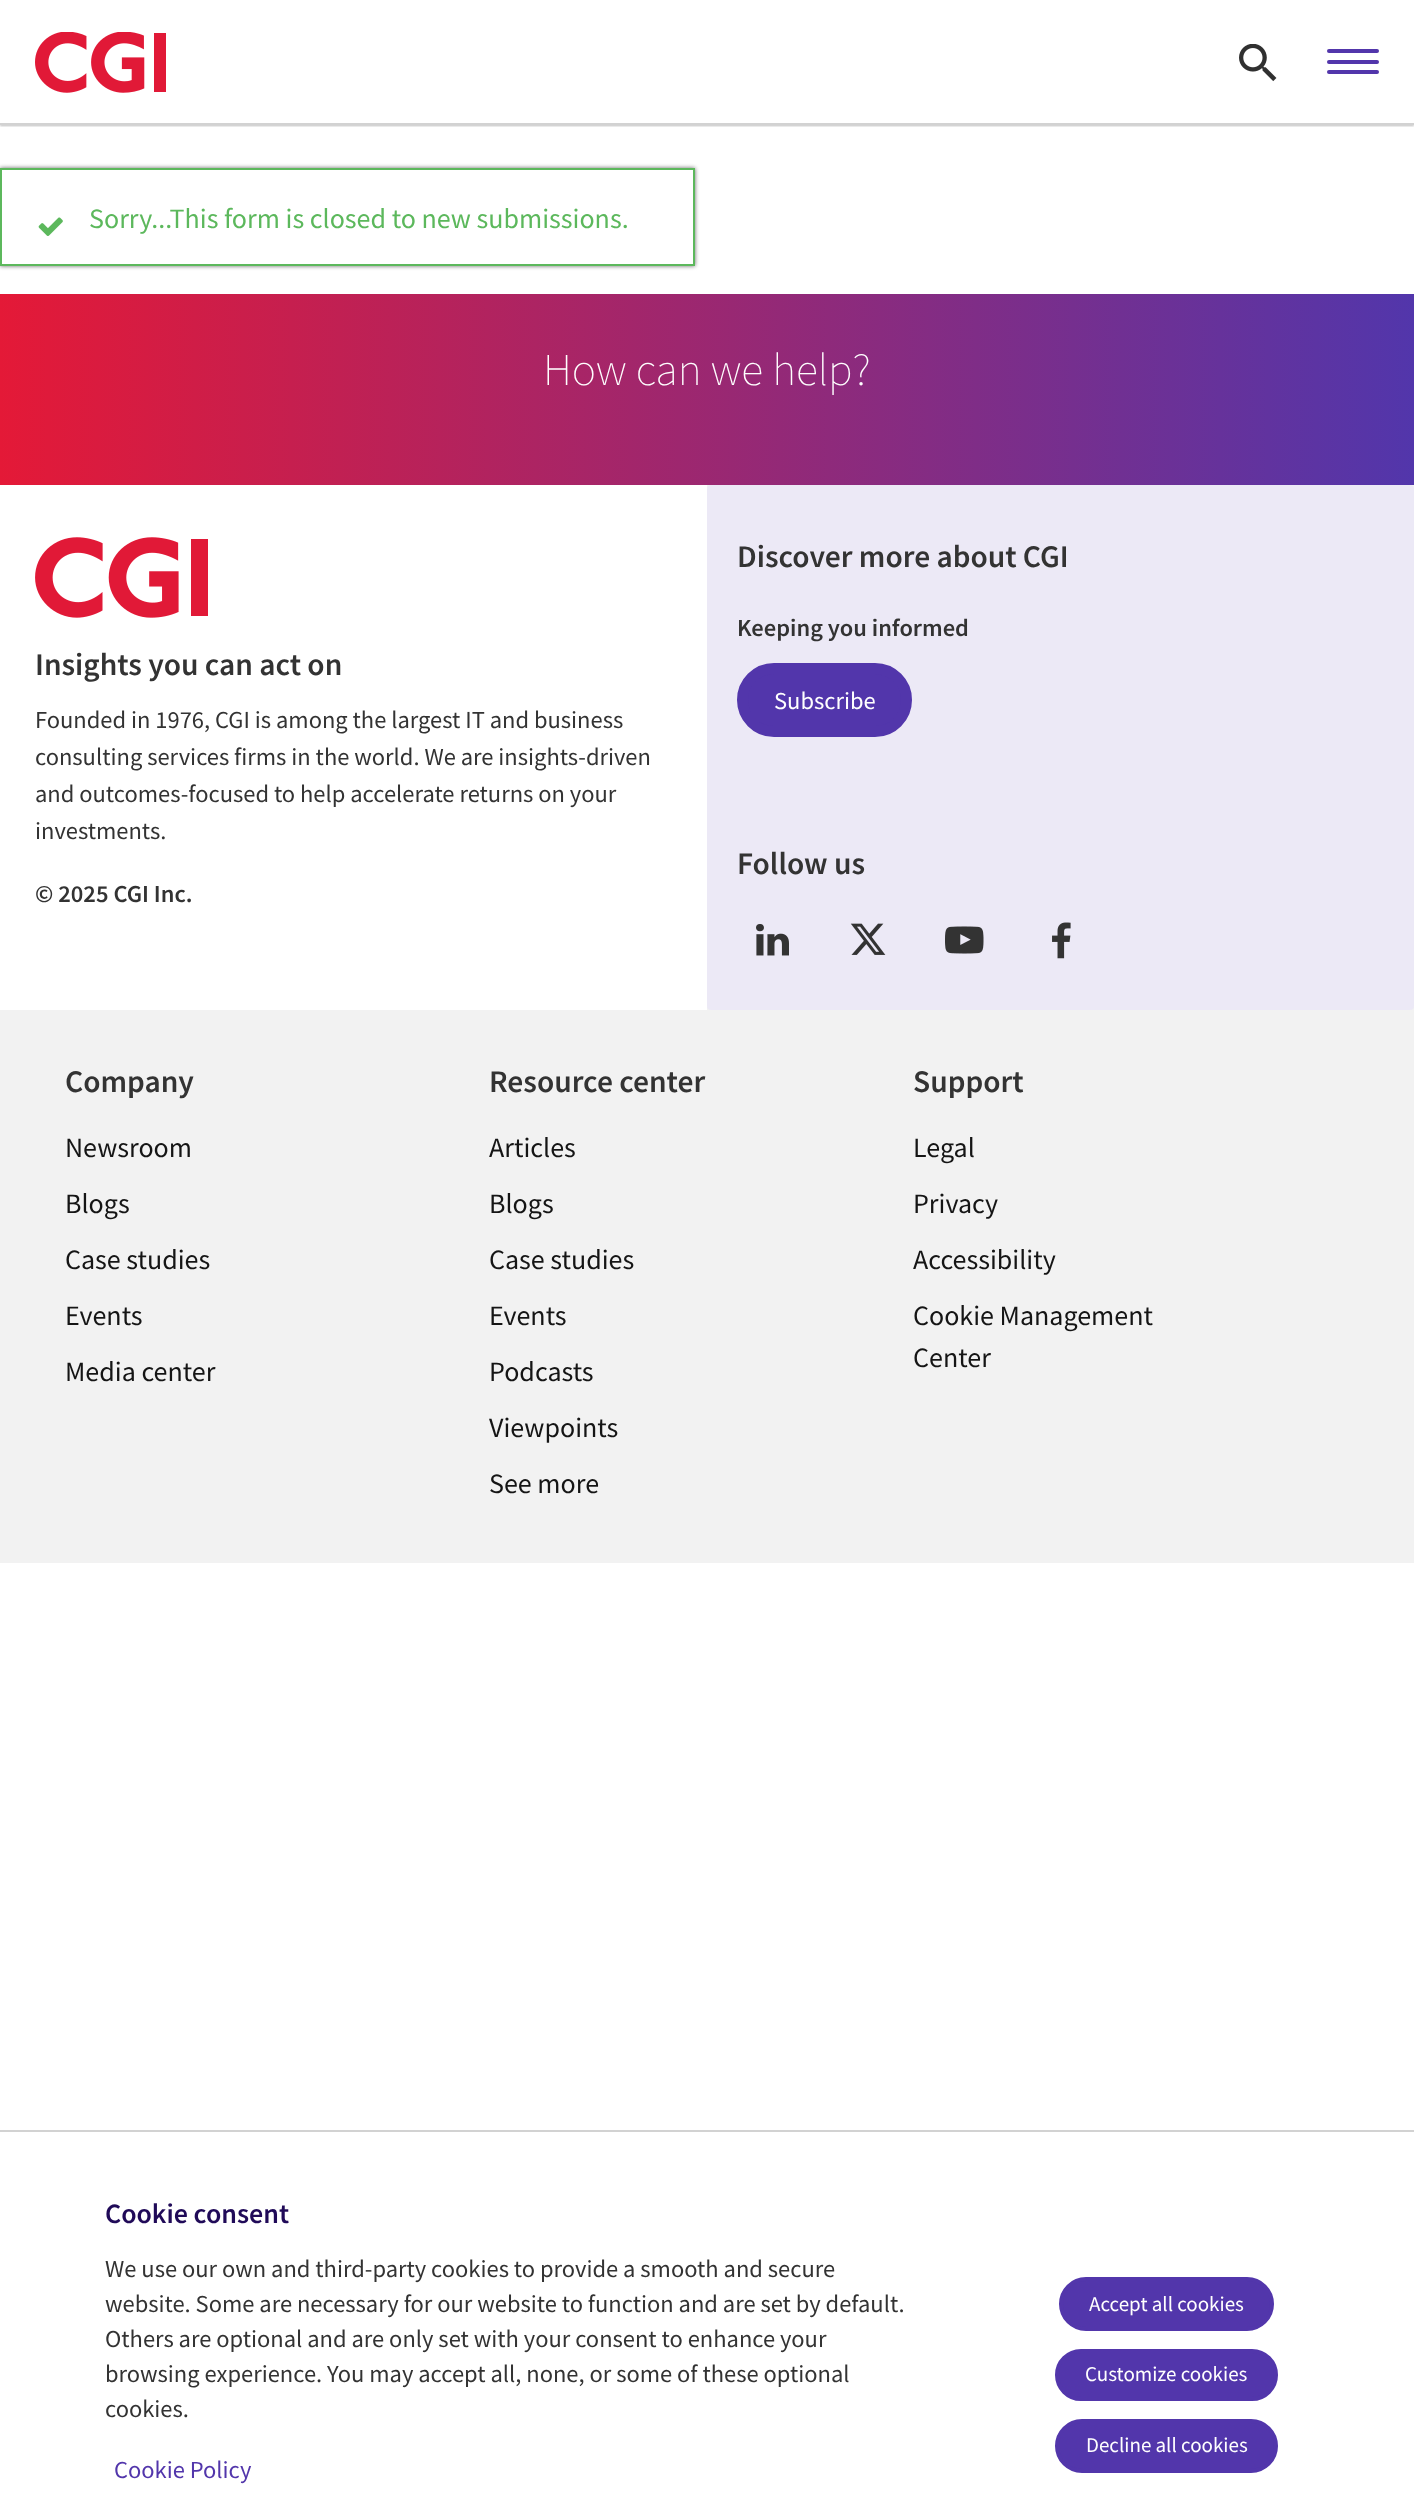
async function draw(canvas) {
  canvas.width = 1414;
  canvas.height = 2503;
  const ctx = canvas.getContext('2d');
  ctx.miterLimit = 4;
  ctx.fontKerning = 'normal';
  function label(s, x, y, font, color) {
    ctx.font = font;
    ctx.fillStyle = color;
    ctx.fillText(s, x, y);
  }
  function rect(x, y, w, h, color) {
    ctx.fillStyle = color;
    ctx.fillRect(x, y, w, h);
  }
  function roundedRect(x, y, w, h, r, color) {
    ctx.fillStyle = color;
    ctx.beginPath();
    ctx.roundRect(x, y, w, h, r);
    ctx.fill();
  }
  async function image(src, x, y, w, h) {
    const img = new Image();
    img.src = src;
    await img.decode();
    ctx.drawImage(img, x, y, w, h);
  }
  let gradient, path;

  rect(0, 0, 1414, 2503, '#fff');
  ctx.save();
  ctx.beginPath();
  ctx.rect(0, 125, 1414, 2);
  ctx.clip();
  ctx.fillStyle = '#00000040';
  ctx.filter = 'blur(1px)';
  ctx.beginPath();
  ctx.rect(0, 2, 1414, 124);
  ctx.fill();
  ctx.filter = 'none';
  ctx.restore();
  rect(0, 123, 1414, 2, '#d2d2d2');
  await image('assets/img1.png', 35, 32, 131, 61);
  await image('assets/img2.png', 1239, 44, 38, 38);
  roundedRect(1327, 70, 52, 4, 2, '#5236ab');
  roundedRect(1327, 49, 52, 4, 2, '#5236ab');
  roundedRect(1327, 60, 52, 4, 2, '#5236ab');
  ctx.save();
  path = new Path2D('M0 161H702V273H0ZM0 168H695V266H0Z');
  ctx.clip(path, 'evenodd');
  ctx.fillStyle = '#666';
  ctx.filter = 'blur(2px)';
  ctx.beginPath();
  ctx.rect(0, 168, 695, 98);
  ctx.fill();
  ctx.filter = 'none';
  ctx.restore();
  ctx.strokeStyle = '#5cb85c';
  ctx.lineWidth = 2;
  ctx.strokeRect(1, 169, 693, 96);
  await image('assets/img3.png', 38, 217, 25, 19);
  label('Sorry...This form is closed to new submissions.', 89, 228, '28px Source Sans Pro', '#5cb85c');
  gradient = ctx.createLinearGradient(1414, 389, 0, 389);
  gradient.addColorStop(0, '#5236ab');
  gradient.addColorStop(1, '#e41937');
  ctx.fillStyle = gradient;
  ctx.fillRect(0, 294, 1414, 191);
  label('How can we help?', 543, 385, '200 45.5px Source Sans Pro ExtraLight', '#fff');
  rect(0, 485, 1414, 1078, '#f2f2f2');
  rect(0, 485, 707, 525, '#fff');
  await image('assets/img4.png', 35, 537, 173, 81);
  label('Insights you can act on', 35, 675, '600 31.5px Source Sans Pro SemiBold', '#333');
  label('Founded in 1976, CGI is among the largest IT and business', 35, 728, '24.5px Source Sans Pro', '#333');
  label('consulting services firms in the world. We are insights-driven', 35, 765, '24.5px Source Sans Pro', '#333');
  label('and outcomes-focused to help accelerate returns on your', 35, 802, '24.5px Source Sans Pro', '#333');
  label('investments.', 35, 839, '24.5px Source Sans Pro', '#333');
  label('© 2025 CGI Inc.', 35, 902, '600 24.5px Source Sans Pro SemiBold', '#333');
  roundedRect(707, 485, 707, 525, 4, '#ece9f6');
  label('Discover more about CGI', 737, 567, '600 31.5px Source Sans Pro SemiBold', '#333');
  label('Keeping you informed', 737, 636, '600 24.5px Source Sans Pro SemiBold', '#333');
  ctx.fillStyle = '#5236ab';
  ctx.beginPath();
  ctx.roundRect(742.5, 668.5, 164, 63, 31.5);
  ctx.fill();
  ctx.strokeStyle = '#5236ab';
  ctx.lineWidth = 11;
  ctx.stroke();
  label('Subscribe', 774, 709, '24.5px Source Sans Pro', '#fff');
  label('Follow us', 737, 874, '600 31.5px Source Sans Pro SemiBold', '#333');
  await image('assets/img5.png', 756, 924, 33, 32);
  await image('assets/img6.png', 850, 923, 36, 32);
  await image('assets/img7.png', 945, 926, 39, 28);
  await image('assets/img8.png', 1052, 922, 19, 37);
  label('Company', 65, 1092, '600 31.5px Source Sans Pro SemiBold', '#333');
  label('Newsroom', 65, 1157, '28px Source Sans Pro', '#151515');
  label('Blogs', 65, 1213, '28px Source Sans Pro', '#151515');
  label('Case studies', 65, 1269, '28px Source Sans Pro', '#151515');
  label('Events', 65, 1325, '28px Source Sans Pro', '#151515');
  label('Media center', 65, 1381, '28px Source Sans Pro', '#151515');
  label('Resource center', 489, 1092, '600 31.5px Source Sans Pro SemiBold', '#333');
  label('Articles', 489, 1157, '28px Source Sans Pro', '#151515');
  label('Blogs', 489, 1213, '28px Source Sans Pro', '#151515');
  label('Case studies', 489, 1269, '28px Source Sans Pro', '#151515');
  label('Events', 489, 1325, '28px Source Sans Pro', '#151515');
  label('Podcasts', 489, 1381, '28px Source Sans Pro', '#151515');
  label('Viewpoints', 489, 1437, '28px Source Sans Pro', '#151515');
  label('See more', 489, 1493, '28px Source Sans Pro', '#151515');
  label('Support', 913, 1092, '600 31.5px Source Sans Pro SemiBold', '#333');
  label('Legal', 913, 1157, '28px Source Sans Pro', '#151515');
  label('Privacy', 913, 1213, '28px Source Sans Pro', '#151515');
  label('Accessibility', 913, 1269, '28px Source Sans Pro', '#151515');
  label('Cookie Management', 913, 1325, '28px Source Sans Pro', '#151515');
  label('Center', 913, 1367, '28px Source Sans Pro', '#151515');
  rect(0, 2130, 1414, 2, '#d2d2d2');
  label('Cookie consent', 105, 2223, '600 28px Source Sans Pro SemiBold', '#200a58');
  label('We use our own and third-party cookies to provide a smooth and secure', 105, 2277, '24.5px Source Sans Pro', '#333');
  label('website. Some are necessary for our website to function and are set by default.', 105, 2312, '24.5px Source Sans Pro', '#333');
  label('Others are optional and are only set with your consent to enhance your', 105, 2347, '24.5px Source Sans Pro', '#333');
  label('browsing experience. You may accept all, none, or some of these optional', 105, 2382, '24.5px Source Sans Pro', '#333');
  label('cookies.', 105, 2417, '24.5px Source Sans Pro', '#333');
  ctx.fillStyle = '#5236ab';
  ctx.beginPath();
  ctx.roundRect(1061, 2279, 211, 50, 25);
  ctx.fill();
  ctx.lineWidth = 4;
  ctx.stroke();
  label('Accept all cookies', 1089, 2311, '21px Source Sans Pro', '#fff');
  ctx.fillStyle = '#5236ab';
  ctx.beginPath();
  ctx.roundRect(1057, 2351, 219, 48, 24);
  ctx.fill();
  ctx.stroke();
  label('Customize cookies', 1085, 2381, '21px Source Sans Pro', '#fff');
  ctx.fillStyle = '#5236ab';
  ctx.beginPath();
  ctx.roundRect(1057, 2421, 219, 50, 25);
  ctx.fill();
  ctx.stroke();
  label('Decline all cookies', 1086, 2452, '21px Source Sans Pro', '#fff');
  label('Cookie Policy', 114, 2478, '24.5px Source Sans Pro', '#5236ab');
}

draw(document.querySelector('canvas'));
